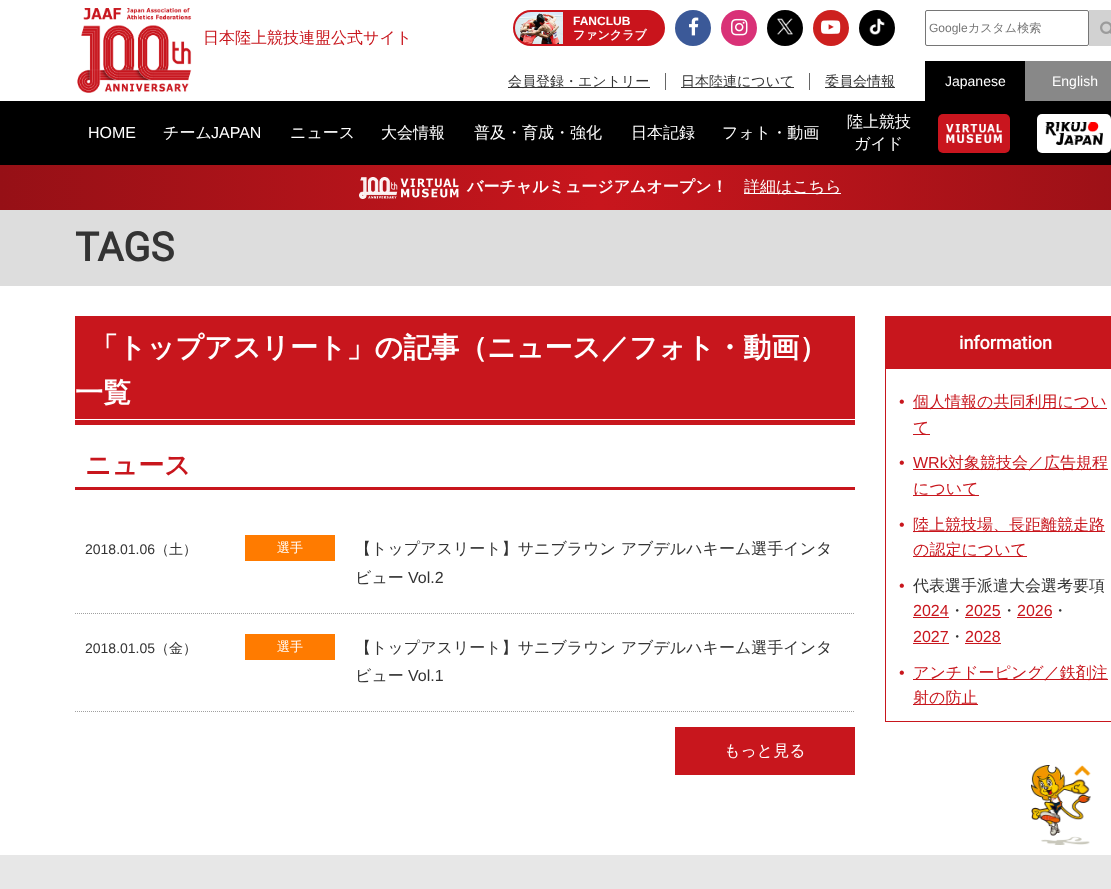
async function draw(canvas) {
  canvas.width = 1111;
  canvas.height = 889;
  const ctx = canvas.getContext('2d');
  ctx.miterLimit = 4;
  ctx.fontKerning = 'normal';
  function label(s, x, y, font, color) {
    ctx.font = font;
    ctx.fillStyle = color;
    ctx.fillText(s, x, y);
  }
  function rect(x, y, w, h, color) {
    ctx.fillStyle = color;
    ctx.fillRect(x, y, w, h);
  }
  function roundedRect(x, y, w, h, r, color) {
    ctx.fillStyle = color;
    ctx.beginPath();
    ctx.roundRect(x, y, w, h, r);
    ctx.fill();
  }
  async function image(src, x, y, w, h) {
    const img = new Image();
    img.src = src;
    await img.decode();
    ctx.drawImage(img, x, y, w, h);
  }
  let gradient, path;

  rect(0, 0, 1111, 889, '#fff');
  await image('assets/img1.png', 77, 8, 115, 85);
  label('日本陸上競技連盟公式サイト', 203, 43, '500 16px WenQuanYi Zen Hei', '#c8161d');
  ctx.fillStyle = '#c9141c';
  ctx.beginPath();
  ctx.roundRect(514, 11, 150, 34, 17);
  ctx.fill();
  ctx.strokeStyle = '#c9141c';
  ctx.lineWidth = 2;
  ctx.stroke();
  await image('assets/img2.png', 515, 12, 48, 32);
  label('FANCLUB', 573, 25, 'bold 12px Liberation Sans', '#fff');
  label('ファンクラブ', 573, 39, 'bold 12px WenQuanYi Zen Hei', '#fff');
  ctx.beginPath();
  ctx.roundRect(925.5, 10.5, 163, 35, 1.5);
  ctx.strokeStyle = '#767676';
  ctx.lineWidth = 1;
  ctx.stroke();
  label('Google', 929, 32, '12px Liberation Sans', '#757575');
  label('カスタム検索', 968, 32, '500 12px WenQuanYi Zen Hei', '#757575');
  rect(1089, 10, 22, 36, '#d2d2d2');
  await image('assets/img3.png', 1100, 21, 11, 13);
  rect(925, 61, 100, 40, '#000');
  label('Japanese', 945, 86, '14px Liberation Sans', '#fff');
  rect(1025, 61, 86, 40, '#888');
  label('English', 1052, 86, '14px Liberation Sans', '#fff');
  ctx.fillStyle = '#3b5998';
  ctx.beginPath();
  ctx.arc(693, 28, 18, 0, 2 * Math.PI);
  ctx.fill();
  await image('assets/img4.png', 689, 17, 10, 19);
  ctx.fillStyle = '#d93177';
  ctx.beginPath();
  ctx.arc(739, 28, 18, 0, 2 * Math.PI);
  ctx.fill();
  await image('assets/img5.png', 731, 18, 17, 18);
  ctx.fillStyle = '#000';
  ctx.beginPath();
  ctx.arc(785, 28, 18, 0, 2 * Math.PI);
  ctx.fill();
  await image('assets/img6.png', 777, 18, 16, 17);
  ctx.fillStyle = '#cd201f';
  ctx.beginPath();
  ctx.arc(831, 28, 18, 0, 2 * Math.PI);
  ctx.fill();
  await image('assets/img7.png', 821, 20, 20, 14);
  ctx.fillStyle = '#000';
  ctx.beginPath();
  ctx.arc(877, 28, 18, 0, 2 * Math.PI);
  ctx.fill();
  await image('assets/img8.png', 869, 18, 16, 17);
  rect(508, 87, 142, 1, '#333');
  label('会員登録・エントリー', 508, 86, '500 14px WenQuanYi Zen Hei', '#333');
  rect(665, 73, 1, 17, '#666');
  rect(681, 87, 113, 1, '#333');
  label('日本陸連について', 681, 86, '500 14px WenQuanYi Zen Hei', '#333');
  rect(809, 73, 1, 17, '#666');
  rect(825, 87, 70, 1, '#333');
  label('委員会情報', 825, 86, '500 14px WenQuanYi Zen Hei', '#333');
  rect(0, 101, 1111, 64, '#000');
  label('HOME', 88, 138, '16px Liberation Sans', '#fff');
  label('チーム', 163, 138, '500 16px WenQuanYi Zen Hei', '#fff');
  label('JAPAN', 211, 138, '16px Liberation Sans', '#fff');
  label('ニュース', 290, 138, '500 16px WenQuanYi Zen Hei', '#fff');
  label('大会情報', 381, 138, '500 16px WenQuanYi Zen Hei', '#fff');
  label('普及・育成・強化', 474, 138, '500 16px WenQuanYi Zen Hei', '#fff');
  label('日本記録', 631, 138, '500 16px WenQuanYi Zen Hei', '#fff');
  label('フォト・動画', 722, 138, '500 16px WenQuanYi Zen Hei', '#fff');
  label('陸上競技', 847, 127, '500 16px WenQuanYi Zen Hei', '#fff');
  label('ガイド', 854, 149, '500 16px WenQuanYi Zen Hei', '#fff');
  roundedRect(938, 114, 72, 39, 5, '#c9151e');
  await image('assets/img9.png', 946, 124, 56, 19);
  roundedRect(1037, 114, 74, 39, 5, '#fff');
  await image('assets/img10.png', 1045, 122, 58, 23);
  gradient = ctx.createLinearGradient(0, 188, 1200, 187);
  gradient.addColorStop(0, '#961016');
  gradient.addColorStop(0.5, '#c8161d');
  gradient.addColorStop(1, '#961016');
  ctx.fillStyle = gradient;
  ctx.fillRect(0, 165, 1111, 45);
  await image('assets/img11.png', 359, 177, 100, 22);
  label('バーチャルミュージアムオープン！', 467, 192, 'bold 16px WenQuanYi Zen Hei', '#fff');
  rect(744, 193, 97, 1, '#fff');
  label('詳細はこちら', 744, 192, '500 16px WenQuanYi Zen Hei', '#fff');
  rect(0, 210, 1111, 76, '#ddd');
  label('TAGS', 75, 261, 'bold 40px Roboto', '#333');
  rect(75, 316, 780, 109, '#c8161d');
  label('「トップアスリート」の記事（ニュース／フォト・動画）', 90, 357, 'bold 28px WenQuanYi Zen Hei', '#fff');
  label('一覧', 75, 402, 'bold 28px WenQuanYi Zen Hei', '#fff');
  rect(75, 419, 780, 1, '#fff');
  rect(75, 487, 780, 3, '#c8161d');
  label('ニュース', 85, 474, 'bold 26px WenQuanYi Zen Hei', '#c8161d');
  path = new Path2D('M75 613.5H855');
  ctx.strokeStyle = '#a0a0a0';
  ctx.setLineDash([1, 1]);
  ctx.stroke(path);
  label('2018.01.06', 85, 554, '14px Liberation Sans', '#333');
  label('（土）', 155, 554, '500 14px WenQuanYi Zen Hei', '#333');
  label('【トップアスリート】サニブラウン アブデルハキーム選手インタ', 355, 554, '500 16px WenQuanYi Zen Hei', '#333');
  label('ビュー', 355, 583, '500 16px WenQuanYi Zen Hei', '#333');
  label('Vol.2', 408, 583, '16px Liberation Sans', '#333');
  rect(245, 535, 90, 26, '#ff7b00');
  label('選手', 277, 552, '500 13px WenQuanYi Zen Hei', '#fff');
  path = new Path2D('M75 711.5H855');
  ctx.stroke(path);
  label('2018.01.05', 85, 653, '14px Liberation Sans', '#333');
  label('（金）', 155, 653, '500 14px WenQuanYi Zen Hei', '#333');
  label('【トップアスリート】サニブラウン アブデルハキーム選手インタ', 355, 653, '500 16px WenQuanYi Zen Hei', '#333');
  label('ビュー', 355, 681, '500 16px WenQuanYi Zen Hei', '#333');
  label('Vol.1', 408, 681, '16px Liberation Sans', '#333');
  rect(245, 634, 90, 26, '#ff7b00');
  label('選手', 277, 651, '500 13px WenQuanYi Zen Hei', '#fff');
  rect(675, 727, 180, 48, '#c8161d');
  label('もっと見る', 724, 756, '500 16px WenQuanYi Zen Hei', '#fff');
  ctx.strokeStyle = '#c8161d';
  ctx.setLineDash([]);
  ctx.strokeRect(885.5, 316.5, 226, 405);
  rect(886, 317, 225, 52, '#c8161d');
  label('information', 959, 349, 'bold 18px Roboto', '#fff');
  label('•', 899, 407, '16px Liberation Sans', '#c8161d');
  rect(913, 408, 194, 1, '#c8161d');
  label('個人情報の共同利用につい', 913, 407, '500 16px WenQuanYi Zen Hei', '#c8161d');
  rect(913, 434, 17, 1, '#c8161d');
  label('て', 913, 433, '500 16px WenQuanYi Zen Hei', '#c8161d');
  label('•', 899, 468, '16px Liberation Sans', '#c8161d');
  label('WRk', 913, 468, '16px Liberation Sans', '#c8161d');
  rect(913, 469, 195, 1, '#c8161d');
  label('対象競技会／広告規程', 948, 468, '500 16px WenQuanYi Zen Hei', '#c8161d');
  rect(913, 495, 66, 1, '#c8161d');
  label('について', 913, 494, '500 16px WenQuanYi Zen Hei', '#c8161d');
  label('•', 899, 530, '16px Liberation Sans', '#c8161d');
  rect(913, 531, 192, 1, '#c8161d');
  label('陸上競技場、長距離競走路', 913, 530, '500 16px WenQuanYi Zen Hei', '#c8161d');
  rect(913, 556, 114, 1, '#c8161d');
  label('の認定について', 913, 555, '500 16px WenQuanYi Zen Hei', '#c8161d');
  label('•', 899, 591, '16px Liberation Sans', '#c8161d');
  label('代表選手派遣大会選考要項', 913, 591, '500 16px WenQuanYi Zen Hei', '#333');
  label('2024', 913, 616, '16px Liberation Sans', '#c8161d');
  rect(913, 617, 36, 1, '#c8161d');
  label('・', 949, 616, '500 16px WenQuanYi Zen Hei', '#333');
  label('2025', 965, 616, '16px Liberation Sans', '#c8161d');
  rect(965, 617, 36, 1, '#c8161d');
  label('・', 1001, 616, '500 16px WenQuanYi Zen Hei', '#333');
  label('2026', 1017, 616, '16px Liberation Sans', '#c8161d');
  rect(1017, 617, 35, 1, '#c8161d');
  label('・', 1052, 616, '500 16px WenQuanYi Zen Hei', '#333');
  label('2027', 913, 642, '16px Liberation Sans', '#c8161d');
  rect(913, 643, 36, 1, '#c8161d');
  label('・', 949, 642, '500 16px WenQuanYi Zen Hei', '#333');
  label('2028', 965, 642, '16px Liberation Sans', '#c8161d');
  rect(965, 643, 36, 1, '#c8161d');
  label('•', 899, 678, '16px Liberation Sans', '#c8161d');
  rect(913, 679, 195, 1, '#c8161d');
  label('アンチドーピング／鉄剤注', 913, 678, '500 16px WenQuanYi Zen Hei', '#c8161d');
  rect(913, 704, 65, 1, '#c8161d');
  label('射の防止', 913, 703, '500 16px WenQuanYi Zen Hei', '#c8161d');
  await image('assets/img12.png', 1031, 765, 60, 80);
  rect(0, 855, 1111, 34, '#e7e7e7');
}

draw(document.querySelector('canvas'));
